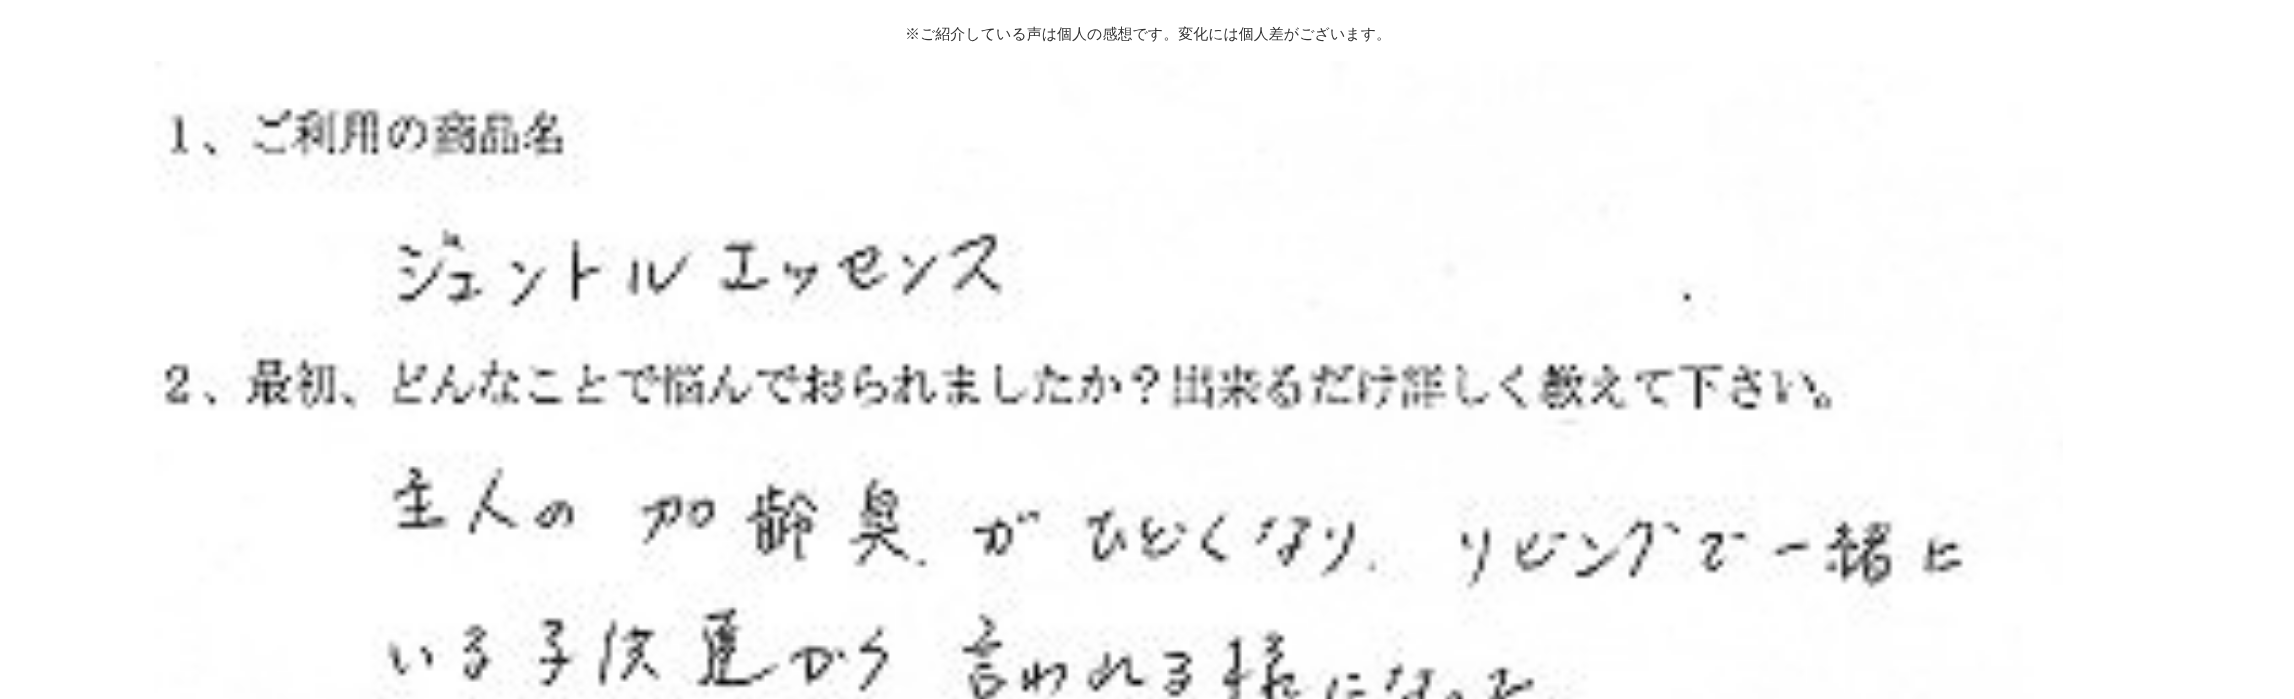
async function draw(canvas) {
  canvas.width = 2294;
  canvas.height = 699;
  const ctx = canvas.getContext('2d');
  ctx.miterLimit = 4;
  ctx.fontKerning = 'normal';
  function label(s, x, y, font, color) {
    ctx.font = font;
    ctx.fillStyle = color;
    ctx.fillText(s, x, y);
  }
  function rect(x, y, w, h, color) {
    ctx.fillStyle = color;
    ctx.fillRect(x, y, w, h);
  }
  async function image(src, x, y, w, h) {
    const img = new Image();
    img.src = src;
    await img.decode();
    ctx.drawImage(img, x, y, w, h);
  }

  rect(0, 0, 2294, 699, '#fff');
  label('※ご紹介している声は個人の感想です。変化には個人差がございます。', 905, 39, '500 15px WenQuanYi Zen Hei', '#333');
  await image('assets/img1.png', 154, 61, 1909, 638);
}

draw(document.querySelector('canvas'));
